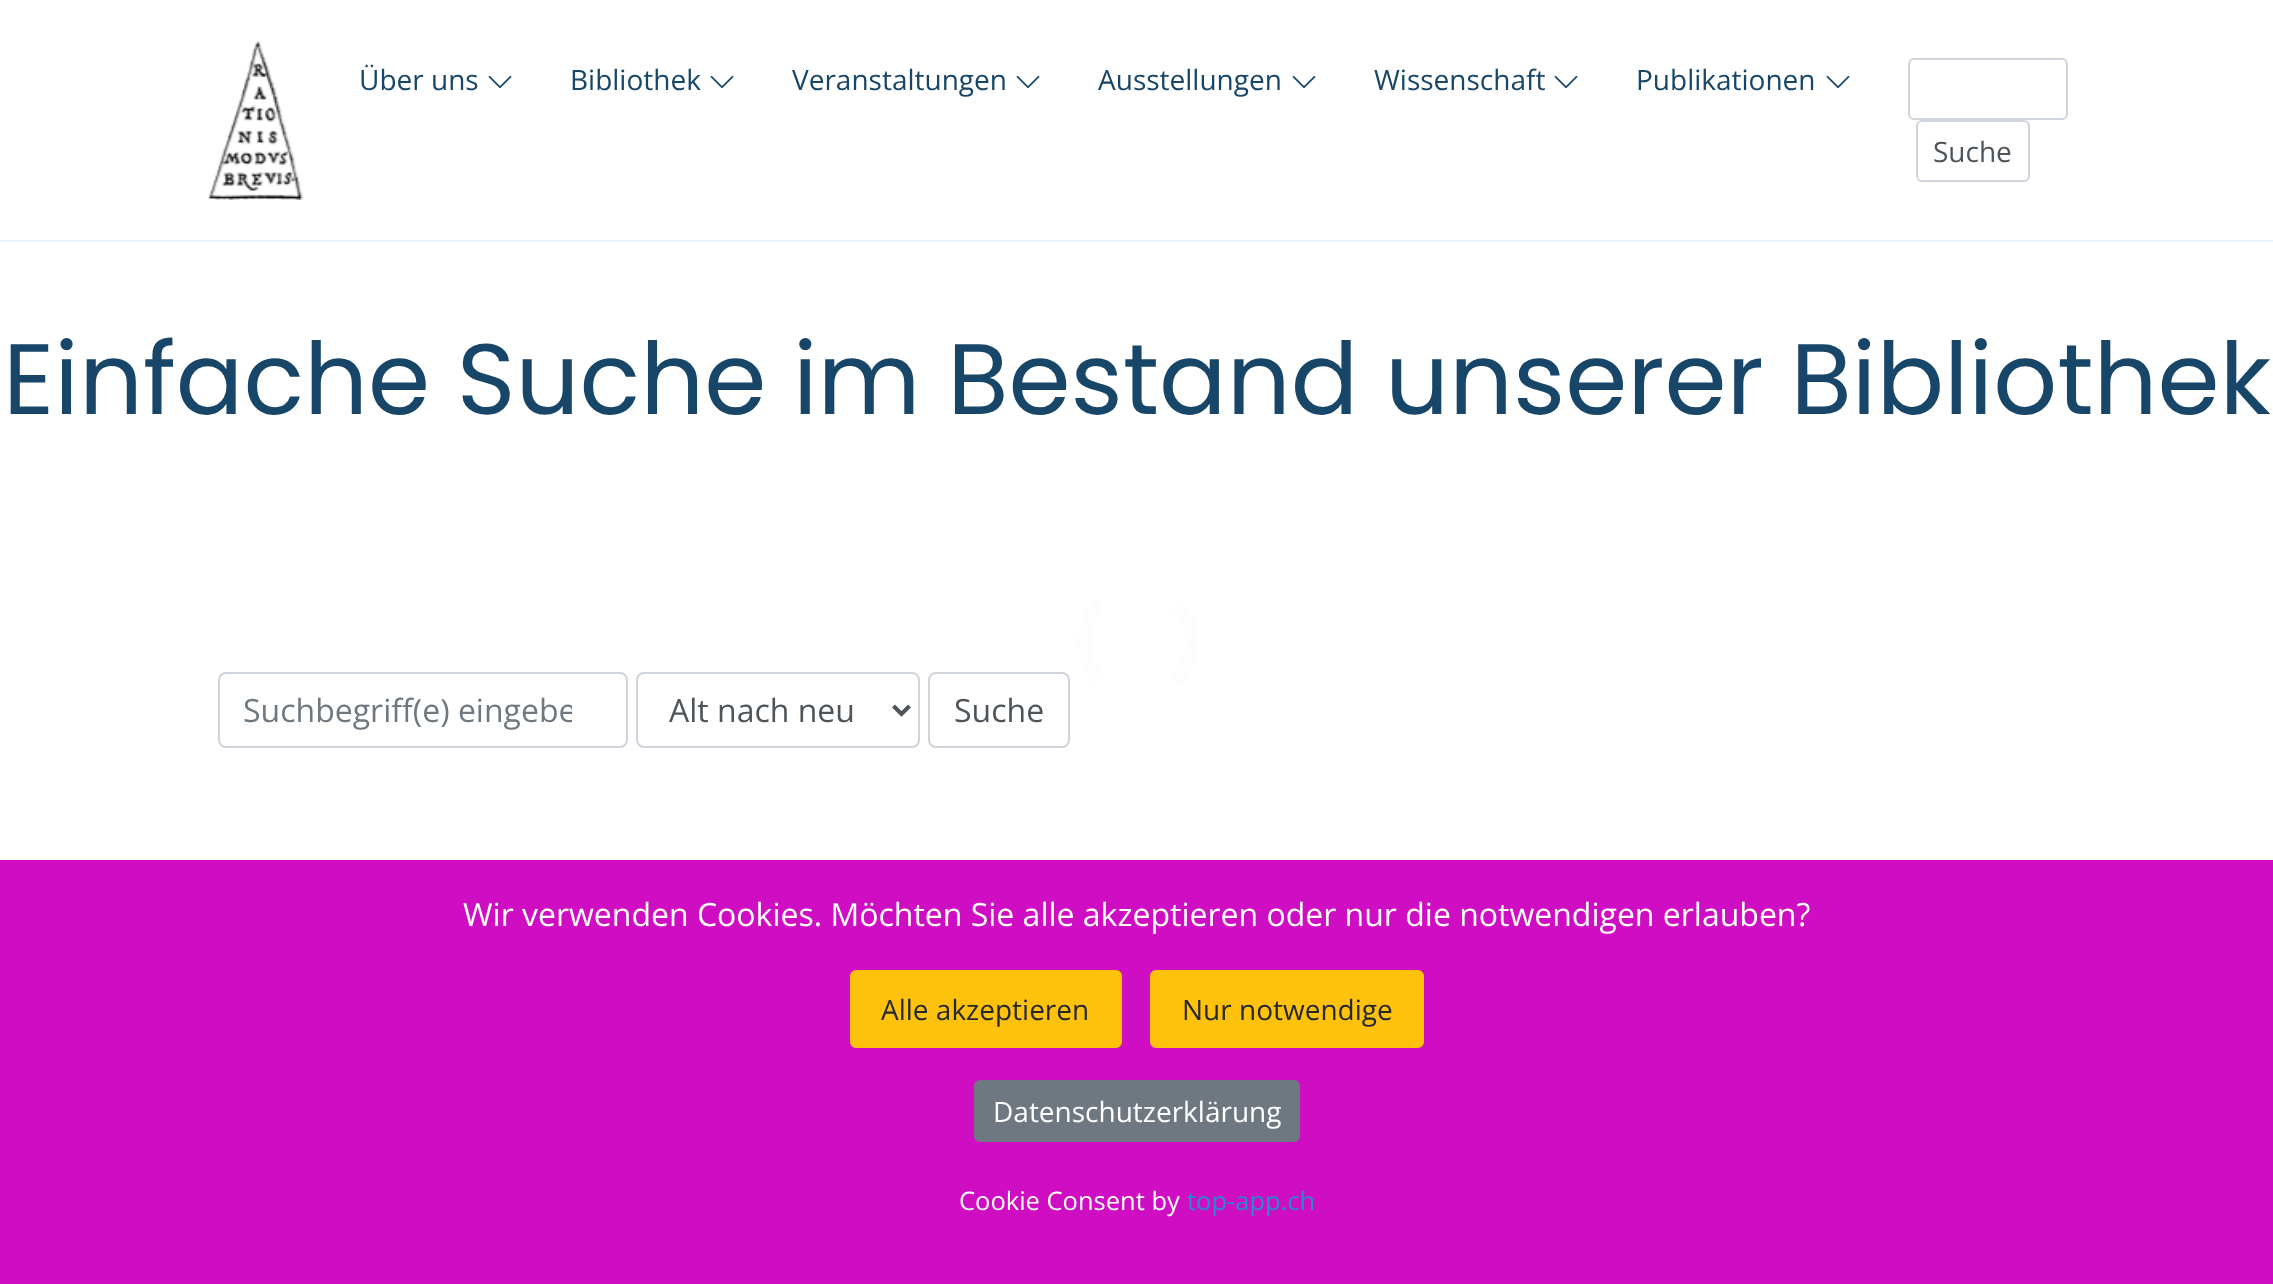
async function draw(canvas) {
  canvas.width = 2273;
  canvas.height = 1284;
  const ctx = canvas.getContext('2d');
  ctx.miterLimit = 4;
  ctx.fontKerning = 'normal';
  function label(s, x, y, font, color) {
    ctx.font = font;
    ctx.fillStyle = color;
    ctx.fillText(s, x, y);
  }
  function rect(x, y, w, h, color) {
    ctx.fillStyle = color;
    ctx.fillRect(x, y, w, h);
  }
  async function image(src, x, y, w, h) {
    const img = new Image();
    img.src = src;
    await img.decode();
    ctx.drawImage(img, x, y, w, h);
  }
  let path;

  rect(0, 0, 2273, 1284, '#fff');
  rect(0, 240, 2273, 2, '#e7f2fb');
  await image('assets/img1.png', 207, 41, 97, 159);
  label('Über uns', 359, 90, '28px Open Sans', '#174668');
  await image('assets/img2.png', 488, 75, 24, 13);
  label('Bibliothek', 570, 90, '28px Open Sans', '#174668');
  await image('assets/img2.png', 710, 75, 24, 13);
  label('Veranstaltungen', 792, 90, '28px Open Sans', '#174668');
  await image('assets/img2.png', 1016, 75, 24, 13);
  label('Ausstellungen', 1098, 90, '28px Open Sans', '#174668');
  await image('assets/img2.png', 1292, 75, 24, 13);
  label('Wissenschaft', 1374, 90, '28px Open Sans', '#174668');
  await image('assets/img2.png', 1554, 75, 24, 13);
  label('Publikationen', 1636, 90, '28px Open Sans', '#174668');
  await image('assets/img2.png', 1826, 75, 24, 13);
  ctx.beginPath();
  ctx.roundRect(1909, 59, 158, 60, 5);
  ctx.strokeStyle = '#cfd5db';
  ctx.lineWidth = 2;
  ctx.stroke();
  ctx.beginPath();
  ctx.roundRect(1917, 121, 112, 60, 5);
  ctx.stroke();
  label('Suche', 1933, 162, '28px Open Sans', '#4d545a');
  label('Einfache Suche im Bestand unserer Bibliothek', 3, 414, '100px Poppins', '#174668');
  path = new Path2D('M1176 604C1197 624.5 1197 659.5 1176 680');
  ctx.strokeStyle = '#fcfdfe';
  ctx.lineWidth = 12;
  ctx.stroke(path);
  path = new Path2D('M1100 680C1079 659.5 1079 624.5 1100 604');
  ctx.stroke(path);
  ctx.beginPath();
  ctx.roundRect(219, 673, 408, 74, 7);
  ctx.strokeStyle = '#cfd5db';
  ctx.lineWidth = 2;
  ctx.stroke();
  ctx.save();
  ctx.beginPath();
  ctx.rect(244, 688, 328, 44);
  ctx.clip();
  label('Suchbegriff(e) eingebe', 243, 722, '32px Open Sans', '#6f7880');
  ctx.restore();
  ctx.beginPath();
  ctx.roundRect(637, 673, 282, 74, 7);
  ctx.stroke();
  path = new Path2D('M893.5 706L901.5 714L909.5 706');
  ctx.strokeStyle = '#4d545a';
  ctx.lineWidth = 4;
  ctx.stroke(path);
  label('Alt nach neu', 669, 722, '32px Open Sans', '#4d545a');
  ctx.beginPath();
  ctx.roundRect(929, 673, 140, 74, 7);
  ctx.strokeStyle = '#cfd5db';
  ctx.lineWidth = 2;
  ctx.stroke();
  label('Suche', 954, 722, '32px Open Sans', '#4d545a');
  rect(0, 860, 2273, 424, '#cf0dc3');
  label('Wir verwenden Cookies. Möchten Sie alle akzeptieren oder nur die notwendigen erlauben?', 463, 926, '32px Open Sans', '#fff');
  ctx.fillStyle = '#ffc20c';
  ctx.beginPath();
  ctx.roundRect(851, 971, 270, 76, 5);
  ctx.fill();
  ctx.strokeStyle = '#ffc20c';
  ctx.stroke();
  label('Alle akzeptieren', 881, 1020, '28px Open Sans', '#25292d');
  ctx.fillStyle = '#ffc20c';
  ctx.beginPath();
  ctx.roundRect(1151, 971, 272, 76, 5);
  ctx.fill();
  ctx.stroke();
  label('Nur notwendige', 1182, 1020, '28px Open Sans', '#25292d');
  ctx.fillStyle = '#6f7880';
  ctx.beginPath();
  ctx.roundRect(975, 1081, 324, 60, 5);
  ctx.fill();
  ctx.strokeStyle = '#6f7880';
  ctx.stroke();
  label('Datenschutzerklärung', 993, 1122, '28px Open Sans', '#fff');
  label('Cookie Consent by', 959, 1210, '25.5px Open Sans', '#fff');
  label('top-app.ch', 1187, 1210, '25.5px Open Sans', '#2889cf');
}

draw(document.querySelector('canvas'));
